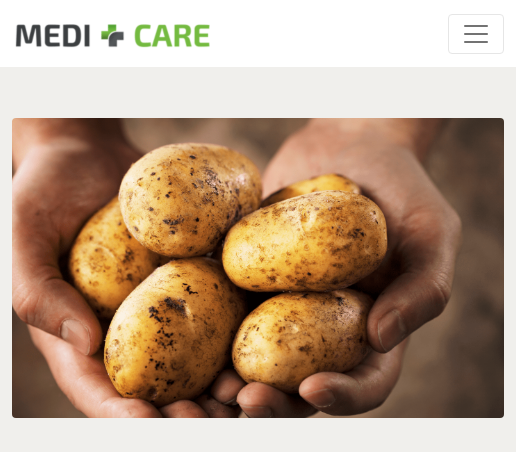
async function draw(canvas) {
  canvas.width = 516;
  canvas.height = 452;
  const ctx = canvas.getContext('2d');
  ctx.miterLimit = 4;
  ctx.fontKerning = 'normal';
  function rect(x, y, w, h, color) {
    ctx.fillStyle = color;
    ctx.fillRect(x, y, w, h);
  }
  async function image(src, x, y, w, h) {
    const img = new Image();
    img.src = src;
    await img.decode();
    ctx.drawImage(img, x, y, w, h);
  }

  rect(0, 0, 516, 452, '#f0efec');
  rect(0, 0, 516, 67, '#fff');
  await image('assets/img1.png', 15, 24, 195, 24);
  ctx.beginPath();
  ctx.roundRect(448.5, 14.5, 55, 39, 3.5);
  ctx.strokeStyle = '#e6e6e6';
  ctx.stroke();
  await image('assets/img2.png', 464, 25, 24, 18);
  await image('assets/img3.png', 12, 118, 492, 300);
}

draw(document.querySelector('canvas'));
